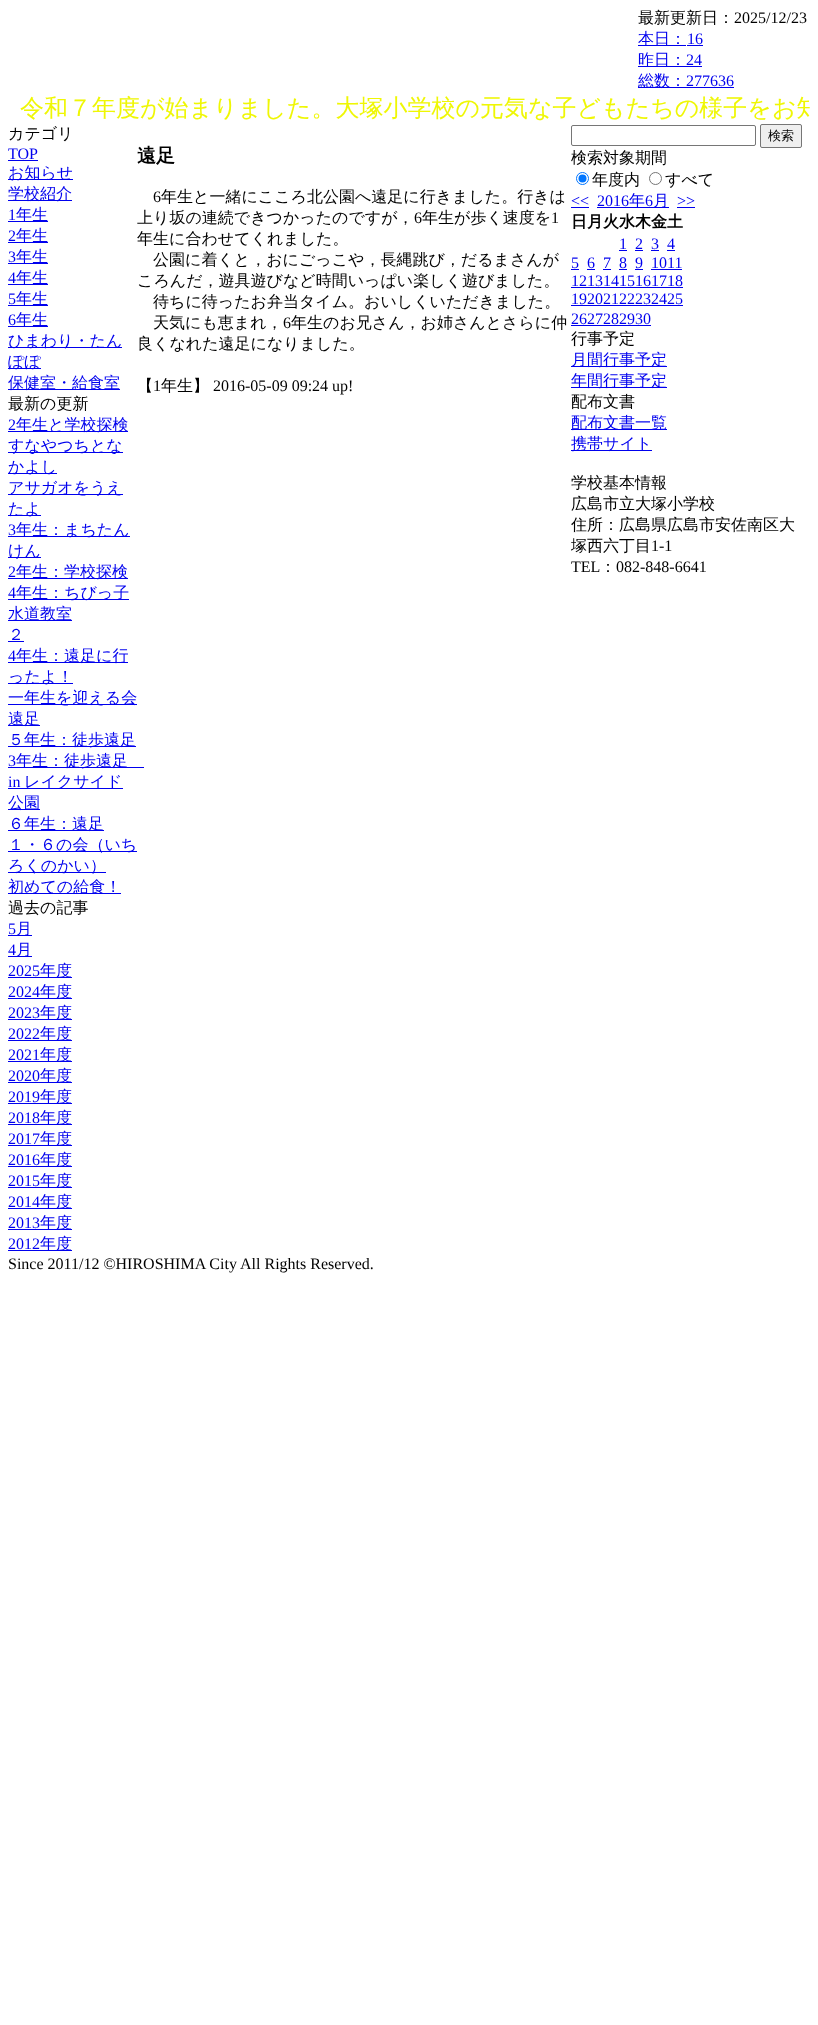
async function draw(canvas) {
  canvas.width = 818;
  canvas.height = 2025;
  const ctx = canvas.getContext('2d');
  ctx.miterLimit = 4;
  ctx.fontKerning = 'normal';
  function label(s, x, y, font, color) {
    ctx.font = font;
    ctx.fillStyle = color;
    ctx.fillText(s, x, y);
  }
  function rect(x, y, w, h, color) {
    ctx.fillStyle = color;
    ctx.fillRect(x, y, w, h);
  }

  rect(0, 0, 818, 2025, '#fff');
  label('最新更新日：', 638, 23, '500 16px WenQuanYi Zen Hei', '#000');
  label('2025/12/23', 734, 23, '16px Liberation Serif', '#000');
  rect(638, 45, 48, 1, '#00e');
  label('本日：', 638, 44, '500 16px WenQuanYi Zen Hei', '#00e');
  label('16', 687, 44, '16px Liberation Serif', '#00e');
  rect(687, 45, 16, 1, '#00e');
  rect(638, 66, 64, 1, '#00e');
  label('昨日：', 638, 65, '500 16px WenQuanYi Zen Hei', '#00e');
  label('24', 686, 65, '16px Liberation Serif', '#00e');
  rect(638, 87, 96, 1, '#00e');
  label('総数：', 638, 86, '500 16px WenQuanYi Zen Hei', '#00e');
  label('277636', 686, 86, '16px Liberation Serif', '#00e');
  ctx.save();
  ctx.beginPath();
  ctx.rect(8, 92, 802, 32);
  ctx.clip();
  label('令和７年度が始まりました。大塚小学校の元気な子どもたちの様子をお知', 20, 116, '500 24px WenQuanYi Zen Hei', '#eff704');
  ctx.restore();
  label('カテゴリ', 8, 139, '500 16px WenQuanYi Zen Hei', '#000');
  label('TOP', 8, 159, '16px Liberation Serif', '#00e');
  rect(8, 160, 30, 1, '#00e');
  rect(8, 179, 65, 1, '#00e');
  label('お知らせ', 8, 178, '500 16px WenQuanYi Zen Hei', '#00e');
  rect(8, 200, 64, 1, '#00e');
  label('学校紹介', 8, 199, '500 16px WenQuanYi Zen Hei', '#00e');
  label('1', 8, 220, '16px Liberation Serif', '#00e');
  rect(8, 221, 40, 1, '#00e');
  label('年生', 16, 220, '500 16px WenQuanYi Zen Hei', '#00e');
  label('2', 8, 241, '16px Liberation Serif', '#00e');
  rect(8, 242, 40, 1, '#00e');
  label('年生', 16, 241, '500 16px WenQuanYi Zen Hei', '#00e');
  label('3', 8, 262, '16px Liberation Serif', '#00e');
  rect(8, 263, 40, 1, '#00e');
  label('年生', 16, 262, '500 16px WenQuanYi Zen Hei', '#00e');
  label('4', 8, 283, '16px Liberation Serif', '#00e');
  rect(8, 284, 40, 1, '#00e');
  label('年生', 16, 283, '500 16px WenQuanYi Zen Hei', '#00e');
  label('5', 8, 304, '16px Liberation Serif', '#00e');
  rect(8, 305, 40, 1, '#00e');
  label('年生', 16, 304, '500 16px WenQuanYi Zen Hei', '#00e');
  label('6', 8, 325, '16px Liberation Serif', '#00e');
  rect(8, 326, 40, 1, '#00e');
  label('年生', 16, 325, '500 16px WenQuanYi Zen Hei', '#00e');
  rect(8, 347, 114, 1, '#00e');
  label('ひまわり・たん', 8, 346, '500 16px WenQuanYi Zen Hei', '#00e');
  rect(8, 368, 33, 1, '#00e');
  label('ぽぽ', 8, 367, '500 16px WenQuanYi Zen Hei', '#00e');
  rect(8, 389, 112, 1, '#00e');
  label('保健室・給食室', 8, 388, '500 16px WenQuanYi Zen Hei', '#00e');
  label('最新の更新', 8, 409, '500 16px WenQuanYi Zen Hei', '#000');
  label('2', 8, 430, '16px Liberation Serif', '#00e');
  rect(8, 431, 120, 1, '#00e');
  label('年生と学校探検', 16, 430, '500 16px WenQuanYi Zen Hei', '#00e');
  rect(8, 452, 115, 1, '#00e');
  label('すなやつちとな', 8, 451, '500 16px WenQuanYi Zen Hei', '#00e');
  rect(8, 473, 49, 1, '#00e');
  label('かよし', 8, 472, '500 16px WenQuanYi Zen Hei', '#00e');
  rect(8, 494, 115, 1, '#00e');
  label('アサガオをうえ', 8, 493, '500 16px WenQuanYi Zen Hei', '#00e');
  rect(8, 515, 33, 1, '#00e');
  label('たよ', 8, 514, '500 16px WenQuanYi Zen Hei', '#00e');
  label('3', 8, 535, '16px Liberation Serif', '#00e');
  rect(8, 536, 122, 1, '#00e');
  label('年生：まちたん', 16, 535, '500 16px WenQuanYi Zen Hei', '#00e');
  rect(8, 557, 33, 1, '#00e');
  label('けん', 8, 556, '500 16px WenQuanYi Zen Hei', '#00e');
  label('2', 8, 577, '16px Liberation Serif', '#00e');
  rect(8, 578, 120, 1, '#00e');
  label('年生：学校探検', 16, 577, '500 16px WenQuanYi Zen Hei', '#00e');
  label('4', 8, 598, '16px Liberation Serif', '#00e');
  rect(8, 599, 121, 1, '#00e');
  label('年生：ちびっ子', 16, 598, '500 16px WenQuanYi Zen Hei', '#00e');
  rect(8, 620, 64, 1, '#00e');
  label('水道教室', 8, 619, '500 16px WenQuanYi Zen Hei', '#00e');
  label('２', 8, 640, '500 16px WenQuanYi Zen Hei', '#00e');
  rect(8, 641, 16, 1, '#00e');
  label('4', 8, 661, '16px Liberation Serif', '#00e');
  rect(8, 662, 120, 1, '#00e');
  label('年生：遠足に行', 16, 661, '500 16px WenQuanYi Zen Hei', '#00e');
  rect(8, 683, 65, 1, '#00e');
  label('ったよ！', 8, 682, '500 16px WenQuanYi Zen Hei', '#00e');
  rect(8, 704, 129, 1, '#00e');
  label('一年生を迎える会', 8, 703, '500 16px WenQuanYi Zen Hei', '#00e');
  rect(8, 725, 32, 1, '#00e');
  label('遠足', 8, 724, '500 16px WenQuanYi Zen Hei', '#00e');
  rect(8, 746, 128, 1, '#00e');
  label('５年生：徒歩遠足', 8, 745, '500 16px WenQuanYi Zen Hei', '#00e');
  label('3', 8, 766, '16px Liberation Serif', '#00e');
  rect(8, 767, 136, 1, '#00e');
  label('年生：徒歩遠足', 16, 766, '500 16px WenQuanYi Zen Hei', '#00e');
  label('in', 8, 787, '16px Liberation Serif', '#00e');
  rect(8, 788, 115, 1, '#00e');
  label('レイクサイド', 24, 787, '500 16px WenQuanYi Zen Hei', '#00e');
  rect(8, 809, 32, 1, '#00e');
  label('公園', 8, 808, '500 16px WenQuanYi Zen Hei', '#00e');
  rect(8, 830, 96, 1, '#00e');
  label('６年生：遠足', 8, 829, '500 16px WenQuanYi Zen Hei', '#00e');
  rect(8, 851, 129, 1, '#00e');
  label('１・６の会（いち', 8, 850, '500 16px WenQuanYi Zen Hei', '#00e');
  rect(8, 872, 98, 1, '#00e');
  label('ろくのかい）', 8, 871, '500 16px WenQuanYi Zen Hei', '#00e');
  rect(8, 893, 113, 1, '#00e');
  label('初めての給食！', 8, 892, '500 16px WenQuanYi Zen Hei', '#00e');
  label('過去の記事', 8, 913, '500 16px WenQuanYi Zen Hei', '#000');
  label('5', 8, 934, '16px Liberation Serif', '#00e');
  rect(8, 935, 24, 1, '#00e');
  label('月', 16, 934, '500 16px WenQuanYi Zen Hei', '#00e');
  label('4', 8, 955, '16px Liberation Serif', '#00e');
  rect(8, 956, 24, 1, '#00e');
  label('月', 16, 955, '500 16px WenQuanYi Zen Hei', '#00e');
  label('2025', 8, 976, '16px Liberation Serif', '#00e');
  rect(8, 977, 64, 1, '#00e');
  label('年度', 40, 976, '500 16px WenQuanYi Zen Hei', '#00e');
  label('2024', 8, 997, '16px Liberation Serif', '#00e');
  rect(8, 998, 64, 1, '#00e');
  label('年度', 40, 997, '500 16px WenQuanYi Zen Hei', '#00e');
  label('2023', 8, 1018, '16px Liberation Serif', '#00e');
  rect(8, 1019, 64, 1, '#00e');
  label('年度', 40, 1018, '500 16px WenQuanYi Zen Hei', '#00e');
  label('2022', 8, 1039, '16px Liberation Serif', '#00e');
  rect(8, 1040, 64, 1, '#00e');
  label('年度', 40, 1039, '500 16px WenQuanYi Zen Hei', '#00e');
  label('2021', 8, 1060, '16px Liberation Serif', '#00e');
  rect(8, 1061, 64, 1, '#00e');
  label('年度', 40, 1060, '500 16px WenQuanYi Zen Hei', '#00e');
  label('2020', 8, 1081, '16px Liberation Serif', '#00e');
  rect(8, 1082, 64, 1, '#00e');
  label('年度', 40, 1081, '500 16px WenQuanYi Zen Hei', '#00e');
  label('2019', 8, 1102, '16px Liberation Serif', '#00e');
  rect(8, 1103, 64, 1, '#00e');
  label('年度', 40, 1102, '500 16px WenQuanYi Zen Hei', '#00e');
  label('2018', 8, 1123, '16px Liberation Serif', '#00e');
  rect(8, 1124, 64, 1, '#00e');
  label('年度', 40, 1123, '500 16px WenQuanYi Zen Hei', '#00e');
  label('2017', 8, 1144, '16px Liberation Serif', '#00e');
  rect(8, 1145, 64, 1, '#00e');
  label('年度', 40, 1144, '500 16px WenQuanYi Zen Hei', '#00e');
  label('2016', 8, 1165, '16px Liberation Serif', '#00e');
  rect(8, 1166, 64, 1, '#00e');
  label('年度', 40, 1165, '500 16px WenQuanYi Zen Hei', '#00e');
  label('2015', 8, 1186, '16px Liberation Serif', '#00e');
  rect(8, 1187, 64, 1, '#00e');
  label('年度', 40, 1186, '500 16px WenQuanYi Zen Hei', '#00e');
  label('2014', 8, 1207, '16px Liberation Serif', '#00e');
  rect(8, 1208, 64, 1, '#00e');
  label('年度', 40, 1207, '500 16px WenQuanYi Zen Hei', '#00e');
  label('2013', 8, 1228, '16px Liberation Serif', '#00e');
  rect(8, 1229, 64, 1, '#00e');
  label('年度', 40, 1228, '500 16px WenQuanYi Zen Hei', '#00e');
  label('2012', 8, 1249, '16px Liberation Serif', '#00e');
  rect(8, 1250, 64, 1, '#00e');
  label('年度', 40, 1249, '500 16px WenQuanYi Zen Hei', '#00e');
  label('遠足', 137, 162, 'bold 19px WenQuanYi Zen Hei', '#000');
  label('6', 153, 202, '16px Liberation Serif', '#000');
  label('年生と一緒にこころ北公園へ遠足に行きました。行きは', 161, 202, '500 16px WenQuanYi Zen Hei', '#000');
  label('上り坂の連続できつかったのですが，', 137, 223, '500 16px WenQuanYi Zen Hei', '#000');
  label('6', 414, 223, '16px Liberation Serif', '#000');
  label('年生が歩く速度を', 422, 223, '500 16px WenQuanYi Zen Hei', '#000');
  label('1', 551, 223, '16px Liberation Serif', '#000');
  label('年生に合わせてくれました。', 137, 244, '500 16px WenQuanYi Zen Hei', '#000');
  label('公園に着くと，おにごっこや，長縄跳び，だるまさんが', 153, 265, '500 16px WenQuanYi Zen Hei', '#000');
  label('ころんだ，遊具遊びなど時間いっぱい楽しく遊びました。', 137, 286, '500 16px WenQuanYi Zen Hei', '#000');
  label('待ちに待ったお弁当タイム。おいしくいただきました。', 153, 307, '500 16px WenQuanYi Zen Hei', '#000');
  label('天気にも恵まれ，', 153, 328, '500 16px WenQuanYi Zen Hei', '#000');
  label('6', 283, 328, '16px Liberation Serif', '#000');
  label('年生のお兄さん，お姉さんとさらに仲', 291, 328, '500 16px WenQuanYi Zen Hei', '#000');
  label('良くなれた遠足になりました。', 137, 349, '500 16px WenQuanYi Zen Hei', '#000');
  label('【', 137, 391, '500 16px WenQuanYi Zen Hei', '#000');
  label('1', 153, 391, '16px Liberation Serif', '#000');
  label('年生】', 161, 391, '500 16px WenQuanYi Zen Hei', '#000');
  label('2016-05-09 09:24 up!', 213, 391, '16px Liberation Serif', '#000');
  ctx.beginPath();
  ctx.roundRect(571.5, 125.5, 184, 20, 1.5);
  ctx.strokeStyle = '#767676';
  ctx.stroke();
  ctx.fillStyle = '#efefef';
  ctx.beginPath();
  ctx.roundRect(760.5, 124.5, 41, 23, 1.5);
  ctx.fill();
  ctx.stroke();
  label('検索', 768, 140, '500 13px WenQuanYi Zen Hei', '#000');
  label('検索対象期間', 571, 163, '500 16px WenQuanYi Zen Hei', '#000');
  ctx.beginPath();
  ctx.arc(582.5, 178.5, 6, 0, 2 * Math.PI);
  ctx.strokeStyle = '#0075ff';
  ctx.stroke();
  ctx.fillStyle = '#0075ff';
  ctx.beginPath();
  ctx.arc(582.5, 178.5, 4, 0, 2 * Math.PI);
  ctx.fill();
  label('年度内', 592, 185, '500 16px WenQuanYi Zen Hei', '#000');
  ctx.beginPath();
  ctx.arc(655.5, 178.5, 6, 0, 2 * Math.PI);
  ctx.strokeStyle = '#767676';
  ctx.stroke();
  label('すべて', 665, 185, '500 16px WenQuanYi Zen Hei', '#000');
  label('<<', 571, 206, '16px Liberation Serif', '#00e');
  rect(571, 207, 18, 1, '#00e');
  label('2016', 597, 206, '16px Liberation Serif', '#00e');
  rect(597, 207, 72, 1, '#00e');
  label('年', 629, 206, '500 16px WenQuanYi Zen Hei', '#00e');
  label('6', 645, 206, '16px Liberation Serif', '#00e');
  label('月', 653, 206, '500 16px WenQuanYi Zen Hei', '#00e');
  label('>>', 677, 206, '16px Liberation Serif', '#00e');
  rect(677, 207, 18, 1, '#00e');
  label('日月火水木金土', 571, 227, 'bold 16px WenQuanYi Zen Hei', '#000');
  label('1', 619, 249, '16px Liberation Serif', '#00e');
  rect(619, 250, 8, 1, '#00e');
  label('2', 635, 249, '16px Liberation Serif', '#00e');
  rect(635, 250, 8, 1, '#00e');
  label('3', 651, 249, '16px Liberation Serif', '#00e');
  rect(651, 250, 8, 1, '#00e');
  label('4', 667, 249, '16px Liberation Serif', '#00e');
  rect(667, 250, 8, 1, '#00e');
  label('5', 571, 268, '16px Liberation Serif', '#00e');
  rect(571, 269, 8, 1, '#00e');
  label('6', 587, 268, '16px Liberation Serif', '#00e');
  rect(587, 269, 8, 1, '#00e');
  label('7', 603, 268, '16px Liberation Serif', '#00e');
  rect(603, 269, 8, 1, '#00e');
  label('8', 619, 268, '16px Liberation Serif', '#00e');
  rect(619, 269, 8, 1, '#00e');
  label('9', 635, 268, '16px Liberation Serif', '#00e');
  rect(635, 269, 8, 1, '#00e');
  label('1011', 651, 268, '16px Liberation Serif', '#00e');
  rect(651, 269, 31, 1, '#00e');
  label('12131415161718', 571, 286, '16px Liberation Serif', '#00e');
  rect(571, 287, 112, 1, '#00e');
  label('19202122232425', 571, 304, '16px Liberation Serif', '#00e');
  rect(571, 305, 112, 1, '#00e');
  label('2627282930', 571, 324, '16px Liberation Serif', '#00e');
  rect(571, 325, 80, 1, '#00e');
  label('行事予定', 571, 344, '500 16px WenQuanYi Zen Hei', '#000');
  rect(571, 366, 96, 1, '#00e');
  label('月間行事予定', 571, 365, '500 16px WenQuanYi Zen Hei', '#00e');
  rect(571, 387, 96, 1, '#00e');
  label('年間行事予定', 571, 386, '500 16px WenQuanYi Zen Hei', '#00e');
  label('配布文書', 571, 407, '500 16px WenQuanYi Zen Hei', '#000');
  rect(571, 429, 96, 1, '#00e');
  label('配布文書一覧', 571, 428, '500 16px WenQuanYi Zen Hei', '#00e');
  rect(571, 450, 81, 1, '#00e');
  label('携帯サイト', 571, 449, '500 16px WenQuanYi Zen Hei', '#00e');
  label('学校基本情報', 571, 488, '500 16px WenQuanYi Zen Hei', '#000');
  label('広島市立大塚小学校', 571, 509, '500 16px WenQuanYi Zen Hei', '#000');
  label('住所：広島県広島市安佐南区大', 571, 530, '500 16px WenQuanYi Zen Hei', '#000');
  label('塚西六丁目', 571, 551, '500 16px WenQuanYi Zen Hei', '#000');
  label('1-1', 651, 551, '16px Liberation Serif', '#000');
  label('TEL', 571, 572, '16px Liberation Serif', '#000');
  label('：', 600, 572, '500 16px WenQuanYi Zen Hei', '#000');
  label('082-848-6641', 616, 572, '16px Liberation Serif', '#000');
  label('Since 2011/12 ©HIROSHIMA City All Rights Reserved.', 8, 1269, '16px Liberation Serif', '#000');
}

draw(document.querySelector('canvas'));
